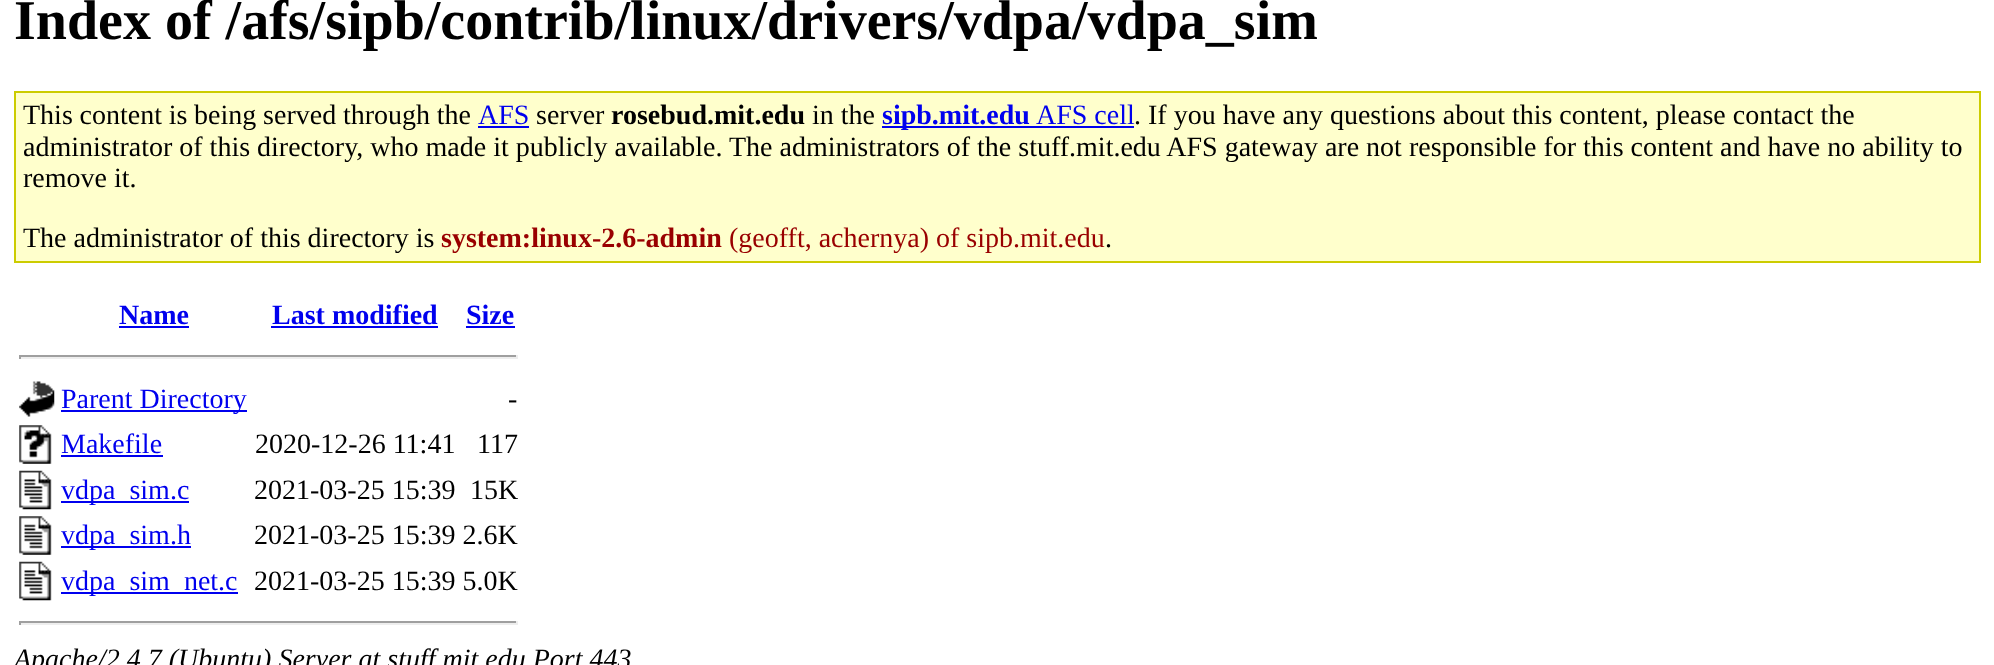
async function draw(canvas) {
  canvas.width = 1994;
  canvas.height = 665;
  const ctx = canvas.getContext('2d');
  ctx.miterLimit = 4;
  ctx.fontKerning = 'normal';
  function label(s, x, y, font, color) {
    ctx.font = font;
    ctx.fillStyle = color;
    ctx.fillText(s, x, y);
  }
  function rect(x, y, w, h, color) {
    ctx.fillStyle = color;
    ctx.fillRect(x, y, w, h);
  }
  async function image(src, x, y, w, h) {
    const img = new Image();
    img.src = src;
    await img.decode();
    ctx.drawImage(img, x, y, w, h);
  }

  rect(0, 0, 1994, 665, '#fff');
  label('Index of /afs/sipb/contrib/linux/drivers/vdpa/vdpa_sim', 14, 39, 'bold 56px Liberation Serif', '#000');
  ctx.fillStyle = '#ffc';
  ctx.beginPath();
  ctx.rect(15, 92, 1965, 170);
  ctx.fill();
  ctx.strokeStyle = '#cc0';
  ctx.lineWidth = 2;
  ctx.stroke();
  ctx.wordSpacing = '-0.25px';
  label('This content is being served through the', 23, 124, '28px Liberation Serif', '#000');
  ctx.wordSpacing = '0px';
  label('AFS', 478, 124, '28px Liberation Serif', '#00e');
  rect(478, 126, 51, 2, '#00e');
  label('server', 536, 124, '28px Liberation Serif', '#000');
  label('rosebud.mit.edu', 611, 124, 'bold 28px Liberation Serif', '#000');
  label('in the', 812, 124, '28px Liberation Serif', '#000');
  rect(882, 126, 252, 2, '#00e');
  label('sipb.mit.edu', 882, 124, 'bold 28px Liberation Serif', '#00e');
  label('AFS cell', 1036, 124, '28px Liberation Serif', '#00e');
  label('. If you have any questions about this content, please contact the', 1134, 124, '28px Liberation Serif', '#000');
  label('administrator of this directory, who made it publicly available.', 23, 156, '28px Liberation Serif', '#000');
  label('The administrators of the stuff.mit.edu AFS gateway are not responsible for this content and have no ability to', 729, 156, '28px Liberation Serif', '#000');
  label('remove it.', 23, 187, '28px Liberation Serif', '#000');
  label('The administrator of this directory is', 23, 247, '28px Liberation Serif', '#000');
  label('system:linux-2.6-admin', 441, 247, 'bold 28px Liberation Serif', '#900');
  label('(geofft, achernya) of sipb.mit.edu', 729, 247, '28px Liberation Serif', '#900');
  label('.', 1105, 247, '28px Liberation Serif', '#000');
  label('Name', 119, 324, 'bold 28px Liberation Serif', '#00e');
  rect(119, 326, 70, 2, '#00e');
  label('Last modified', 272, 324, 'bold 28px Liberation Serif', '#00e');
  rect(271, 326, 167, 2, '#00e');
  label('Size', 466, 324, 'bold 28px Liberation Serif', '#00e');
  rect(466, 326, 49, 2, '#00e');
  rect(19, 355, 499, 2, '#9f9f9f');
  rect(516, 355, 2, 4, '#eee');
  rect(19, 357, 499, 2, '#eee');
  rect(19, 355, 2, 4, '#9f9f9f');
  await image('assets/img1.png', 19, 381, 36, 36);
  rect(61, 410, 186, 2, '#00e');
  label('Parent Directory', 61, 408, '28px Liberation Serif', '#00e');
  label('-', 508, 408, '28px Liberation Serif', '#000');
  await image('assets/img2.png', 19, 425, 33, 39);
  label('Makefile', 61, 453, '28px Liberation Serif', '#00e');
  rect(61, 455, 102, 2, '#00e');
  label('2020-12-26 11:41', 255, 453, '28px Liberation Serif', '#000');
  label('117', 477, 453, '28px Liberation Serif', '#000');
  await image('assets/img3.png', 19, 470, 33, 40);
  rect(61, 501, 128, 2, '#00e');
  label('vdpa_sim.c', 61, 499, '28px Liberation Serif', '#00e');
  label('2021-03-25 15:39', 254, 499, '28px Liberation Serif', '#000');
  label('15K', 470, 499, '28px Liberation Serif', '#000');
  await image('assets/img4.png', 19, 516, 33, 39);
  rect(61, 546, 130, 2, '#00e');
  label('vdpa_sim.h', 61, 544, '28px Liberation Serif', '#00e');
  label('2021-03-25 15:39 2.6K', 254, 544, '28px Liberation Serif', '#000');
  await image('assets/img3.png', 19, 561, 33, 40);
  rect(61, 592, 177, 2, '#00e');
  label('vdpa_sim_net.c', 61, 590, '28px Liberation Serif', '#00e');
  label('2021-03-25 15:39 5.0K', 254, 590, '28px Liberation Serif', '#000');
  rect(19, 621, 499, 2, '#9f9f9f');
  rect(516, 621, 2, 4, '#eee');
  rect(19, 623, 499, 2, '#eee');
  rect(19, 621, 2, 4, '#9f9f9f');
  label('Apache/2.4.7 (Ubuntu) Server at stuff.mit.edu Port 443', 14, 668, 'italic 28px Liberation Serif', '#000');
}

draw(document.querySelector('canvas'));
